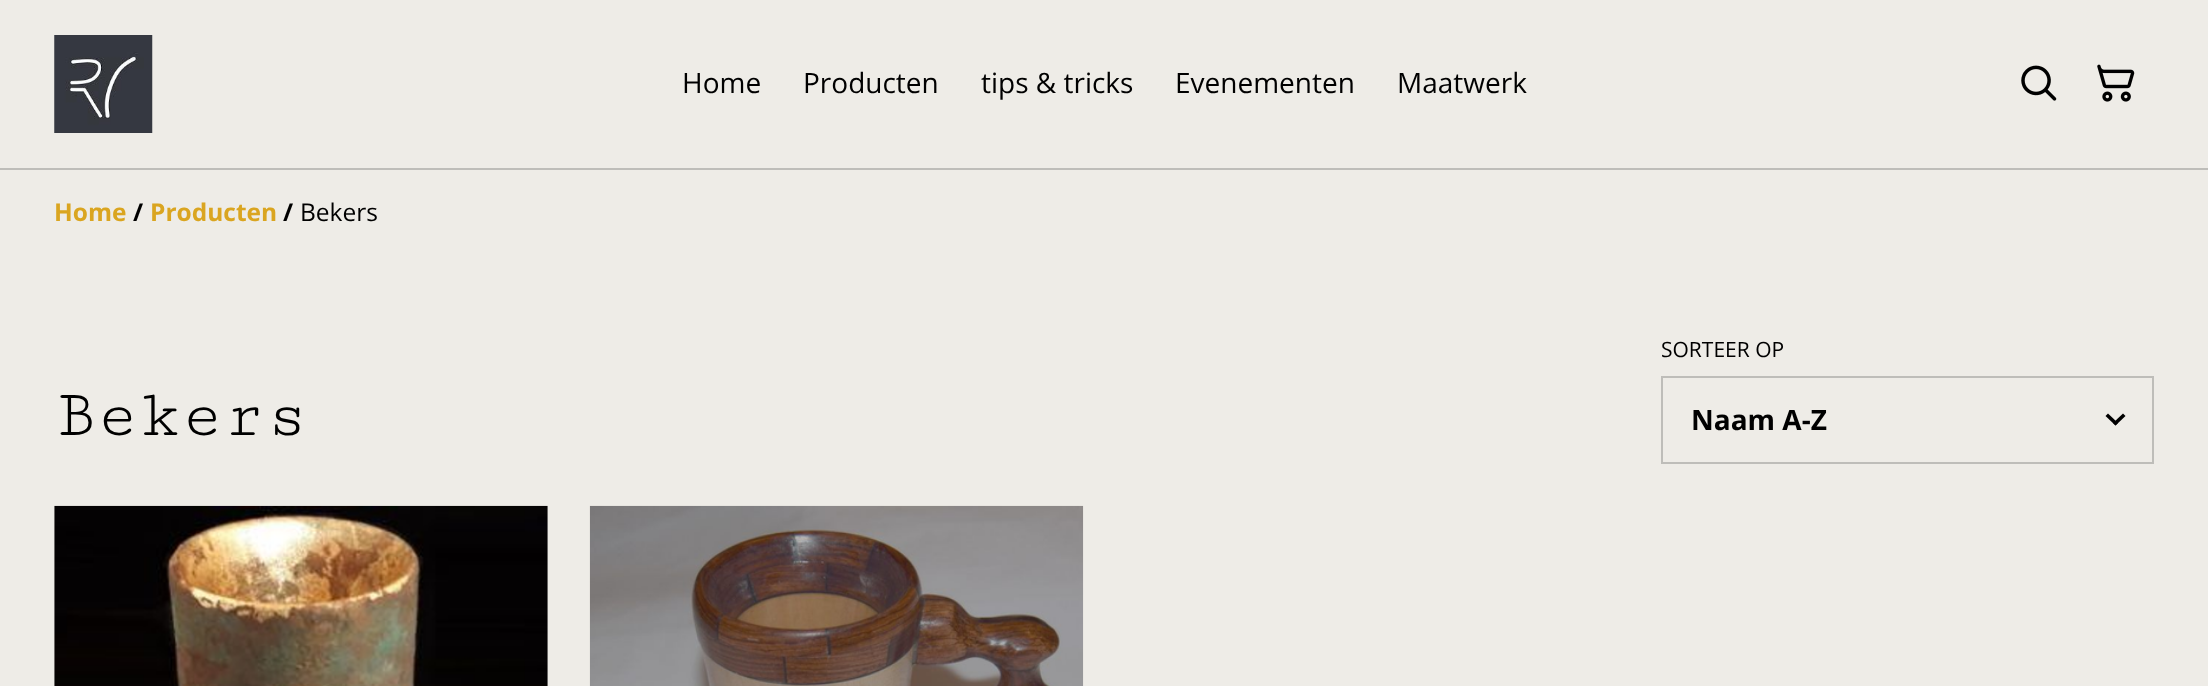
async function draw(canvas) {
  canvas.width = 2208;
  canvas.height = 686;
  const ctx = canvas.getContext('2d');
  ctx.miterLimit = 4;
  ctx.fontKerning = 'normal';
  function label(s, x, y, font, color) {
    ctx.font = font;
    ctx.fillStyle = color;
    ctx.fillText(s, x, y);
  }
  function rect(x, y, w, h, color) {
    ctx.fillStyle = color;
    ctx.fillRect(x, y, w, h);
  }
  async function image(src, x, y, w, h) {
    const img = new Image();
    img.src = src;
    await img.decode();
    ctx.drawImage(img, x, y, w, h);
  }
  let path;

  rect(0, 0, 2208, 686, '#eeece7');
  rect(0, 168, 2208, 2, '#bebdb9');
  await image('assets/img1.png', 54, 35, 99, 98);
  label('Home', 682, 93, '28px Open Sans', '#000');
  label('Producten', 803, 93, '28px Open Sans', '#000');
  label('tips & tricks', 981, 93, '28px Open Sans', '#000');
  label('Evenementen', 1175, 93, '28px Open Sans', '#000');
  label('Maatwerk', 1397, 93, '28px Open Sans', '#000');
  await image('assets/img2.png', 2021, 65, 36, 36);
  await image('assets/img3.png', 2097, 64, 38, 38);
  label('Home', 54, 221, 'bold 24.5px Open Sans', '#daa520');
  label('/', 133, 221, 'bold 24.5px Open Sans', '#000');
  label('Producten', 150, 221, 'bold 24.5px Open Sans', '#daa520');
  label('/', 283, 221, 'bold 24.5px Open Sans', '#000');
  label('Bekers', 300, 221, '24.5px Open Sans', '#000');
  label('Bekers', 54, 435, '70px Cutive Mono', '#000');
  label('SORTEER OP', 1661, 357, '21px Open Sans', '#000');
  ctx.strokeStyle = '#bebdb9';
  ctx.lineWidth = 2;
  ctx.strokeRect(1662, 377, 491, 86);
  label('Naam A-Z', 1691, 430, 'bold 28px Open Sans', '#000');
  path = new Path2D('M2123 413.5L2125.5 416L2115.5 425.5L2113 423Z');
  ctx.fill(path);
  path = new Path2D('M2108 413.5L2118 423L2115.5 425.5L2105.5 416Z');
  ctx.fill(path);
  await image('assets/img4.png', 54, 505, 494, 181);
  await image('assets/img5.png', 589, 505, 495, 181);
}

draw(document.querySelector('canvas'));
